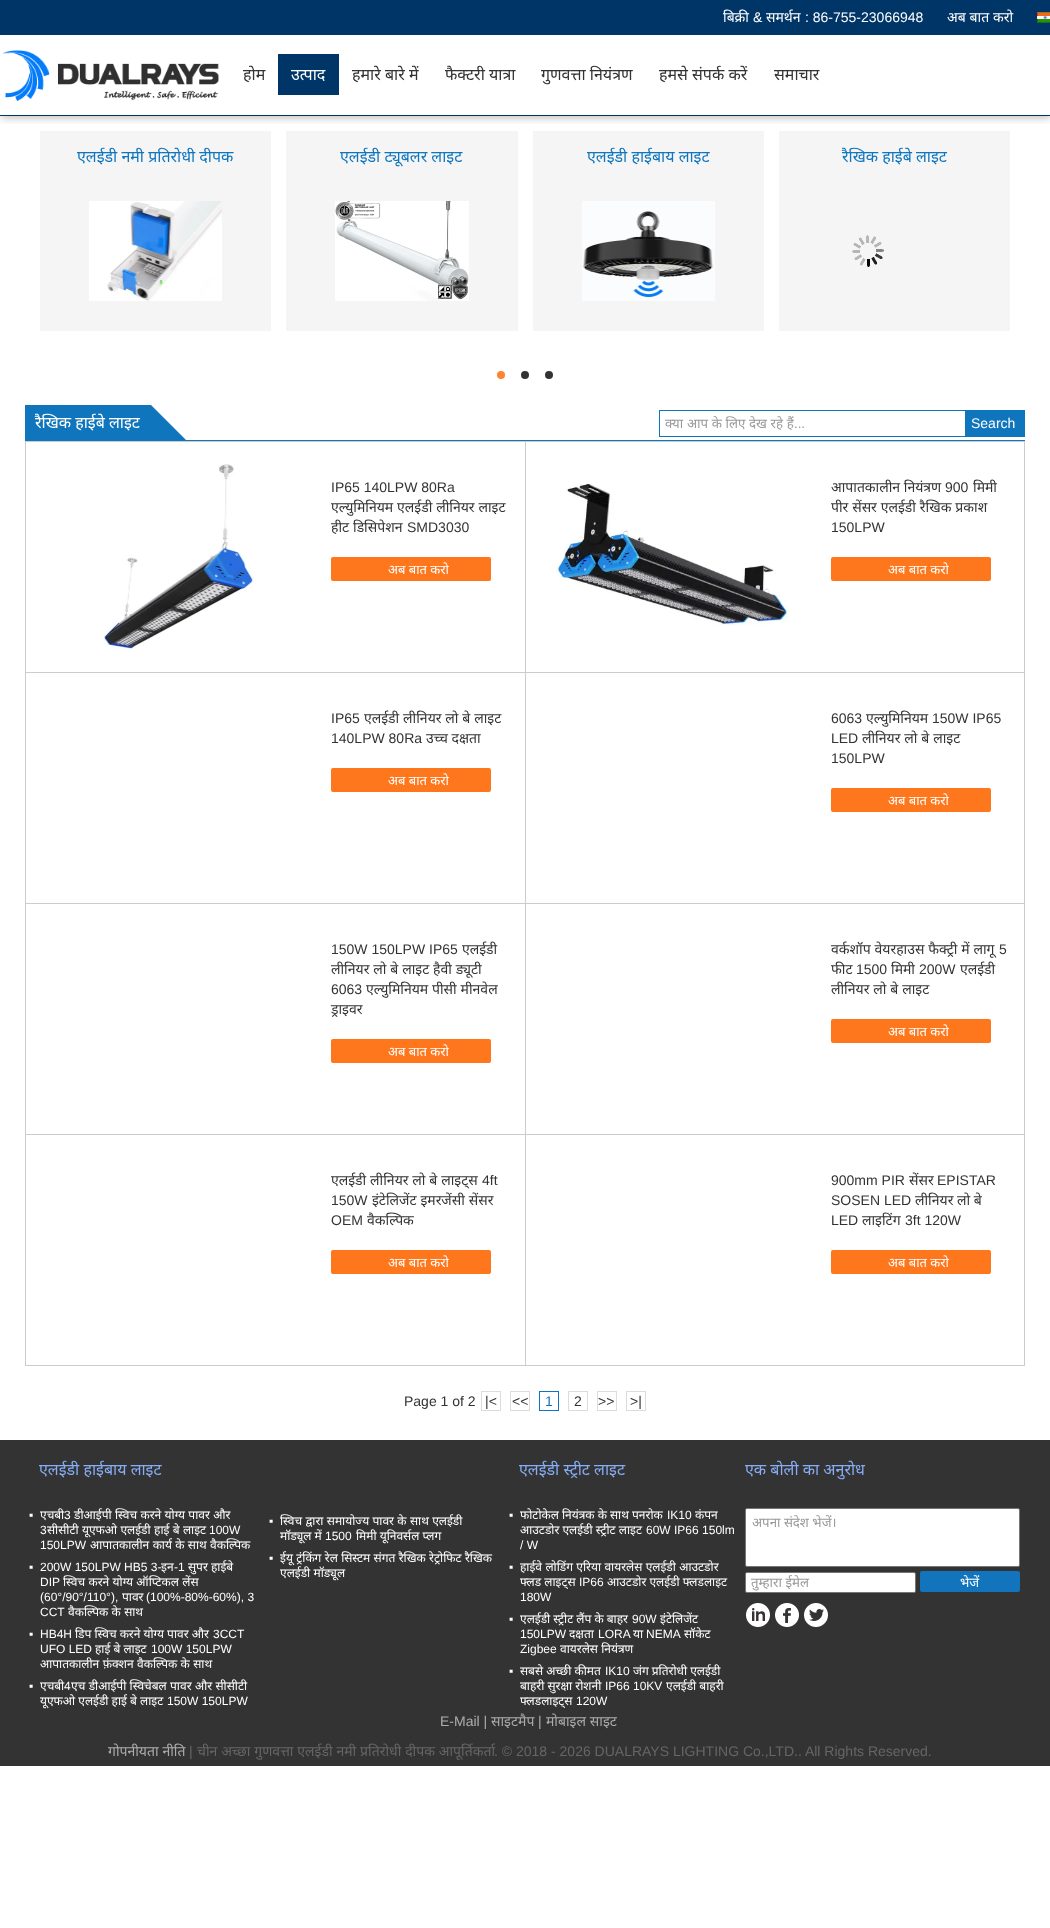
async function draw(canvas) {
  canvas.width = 1050;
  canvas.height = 1928;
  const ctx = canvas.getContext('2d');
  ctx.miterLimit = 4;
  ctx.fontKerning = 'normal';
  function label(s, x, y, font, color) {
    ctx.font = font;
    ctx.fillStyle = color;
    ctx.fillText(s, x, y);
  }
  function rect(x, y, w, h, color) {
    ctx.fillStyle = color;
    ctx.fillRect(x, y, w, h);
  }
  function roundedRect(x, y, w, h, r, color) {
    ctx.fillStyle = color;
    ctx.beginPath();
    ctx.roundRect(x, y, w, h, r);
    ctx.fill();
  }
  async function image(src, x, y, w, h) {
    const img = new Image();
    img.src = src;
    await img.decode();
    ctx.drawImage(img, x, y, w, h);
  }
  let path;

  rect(0, 0, 1050, 1928, '#fff');
  ctx.save();
  ctx.beginPath();
  ctx.rect(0, 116, 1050, 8);
  ctx.clip();
  ctx.fillStyle = '#0000004d';
  ctx.filter = 'blur(5px)';
  ctx.beginPath();
  ctx.rect(1, 1, 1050, 116);
  ctx.fill();
  ctx.filter = 'none';
  ctx.restore();
  rect(0, 115, 1050, 1, '#003567');
  rect(0, 0, 1050, 35, '#003567');
  label('बिक्री', 723, 22, '14px Noto Sans', '#fff');
  label('&', 753, 22, '14px Liberation Sans', '#fff');
  label('समर्थन', 766, 22, '14px Noto Sans', '#fff');
  label(': 86-755-23066948', 805, 22, '14px Liberation Sans', '#fff');
  ctx.wordSpacing = '0.25px';
  label('अब बात करो', 947, 22, '14px Noto Sans', '#fff');
  await image('assets/img1.png', 1037, 12, 13, 11);
  await image('assets/img2.png', 2, 50, 217, 51);
  ctx.wordSpacing = '0px';
  label('होम', 243, 80, '16px Noto Sans', '#333');
  rect(278, 54, 61, 41, '#003567');
  label('उत्पाद', 291, 80, '16px Noto Sans', '#fff');
  label('हमारे बारे में', 352, 80, '16px Noto Sans', '#333');
  label('फैक्टरी यात्रा', 445, 80, '16px Noto Sans', '#333');
  label('गुणवत्ता नियंत्रण', 541, 80, '16px Noto Sans', '#333');
  label('हमसे संपर्क करें', 659, 80, '16px Noto Sans', '#333');
  label('समाचार', 774, 80, '16px Noto Sans', '#333');
  rect(40, 131, 231, 200, '#f5f5f5');
  label('एलईडी नमी प्रतिरोधी दीपक', 77, 162, '16px Noto Sans', '#0f75bd');
  await image('assets/img3.png', 89, 201, 133, 100);
  rect(286, 131, 232, 200, '#f5f5f5');
  label('एलईडी ट्यूबलर लाइट', 340, 162, '16px Noto Sans', '#0f75bd');
  await image('assets/img4.png', 335, 201, 134, 100);
  rect(533, 131, 231, 200, '#f5f5f5');
  label('एलईडी हाईबाय लाइट', 587, 162, '16px Noto Sans', '#0f75bd');
  await image('assets/img5.png', 582, 201, 133, 100);
  rect(779, 131, 231, 200, '#f5f5f5');
  label('रैखिक हाईबे लाइट', 842, 162, '16px Noto Sans', '#0f75bd');
  await image('assets/img6.png', 852, 235, 32, 32);
  ctx.fillStyle = '#ff842d';
  ctx.beginPath();
  ctx.arc(501, 375, 4, 0, 2 * Math.PI);
  ctx.fill();
  ctx.fillStyle = '#333';
  ctx.beginPath();
  ctx.arc(525, 375, 4, 0, 2 * Math.PI);
  ctx.fill();
  ctx.beginPath();
  ctx.arc(549, 375, 4, 0, 2 * Math.PI);
  ctx.fill();
  rect(25, 440, 1000, 1, '#0f75bd');
  rect(25, 405, 126, 35, '#0f75bd');
  label('रैखिक हाईबे लाइट', 35, 428, '16px Noto Sans', '#fff');
  ctx.fillStyle = '#0f75bd';
  path = new Path2D('M186 440H151V405Z');
  ctx.fill(path);
  ctx.strokeStyle = '#0f75bd';
  ctx.strokeRect(659.5, 410.5, 306, 26);
  ctx.wordSpacing = '0.25px';
  label('क्या आप के लिए देख रहे हैं', 665, 428, '13.25px Noto Sans', '#999');
  ctx.wordSpacing = '0px';
  label('...', 794, 428, '13.25px Liberation Sans', '#999');
  rect(966, 410, 59, 27, '#0f75bd');
  label('Search', 971, 428, '14px Liberation Sans', '#fff');
  rect(25, 441, 1000, 1, '#ccc');
  rect(25, 672, 500, 1, '#ccc');
  rect(25, 442, 1, 231, '#ccc');
  await image('assets/img7.png', 103, 464, 151, 185);
  label('IP65 140LPW 80Ra', 331, 492, '14px Liberation Sans', '#333');
  ctx.wordSpacing = '0.25px';
  label('एल्युमिनियम एलईडी लीनियर लाइट', 331, 512, '14px Noto Sans', '#333');
  label('हीट डिसिपेशन', 331, 532, '14px Noto Sans', '#333');
  ctx.wordSpacing = '0px';
  label('SMD3030', 407, 532, '14px Liberation Sans', '#333');
  roundedRect(331, 557, 160, 24, 2, '#ff771c');
  label('अब बात करो', 388, 574, '13px Noto Sans', '#fff');
  rect(1024, 442, 1, 924, '#ccc');
  rect(525, 672, 500, 1, '#ccc');
  rect(525, 442, 1, 231, '#ccc');
  await image('assets/img8.png', 556, 483, 233, 143);
  label('आपातकालीन नियंत्रण', 831, 492, '14px Noto Sans', '#333');
  label('900', 945, 492, '14px Liberation Sans', '#333');
  label('मिमी', 973, 492, '14px Noto Sans', '#333');
  ctx.wordSpacing = '0.25px';
  label('पीर सेंसर एलईडी रैखिक प्रकाश', 831, 512, '14px Noto Sans', '#333');
  ctx.wordSpacing = '0px';
  label('150LPW', 831, 532, '14px Liberation Sans', '#333');
  roundedRect(831, 557, 160, 24, 2, '#ff771c');
  label('अब बात करो', 888, 574, '13px Noto Sans', '#fff');
  rect(25, 903, 1000, 1, '#ccc');
  rect(25, 673, 1, 231, '#ccc');
  label('IP65', 331, 723, '14px Liberation Sans', '#333');
  ctx.wordSpacing = '0.25px';
  label('एलईडी लीनियर लो बे लाइट', 364, 723, '14px Noto Sans', '#333');
  ctx.wordSpacing = '0px';
  label('140LPW 80Ra', 331, 743, '14px Liberation Sans', '#333');
  label('उच्च दक्षता', 426, 743, '14px Noto Sans', '#333');
  roundedRect(331, 768, 160, 24, 2, '#ff771c');
  label('अब बात करो', 388, 785, '13px Noto Sans', '#fff');
  rect(525, 673, 1, 231, '#ccc');
  label('6063', 831, 723, '14px Liberation Sans', '#333');
  label('एल्युमिनियम', 866, 723, '14px Noto Sans', '#333');
  label('150W IP65', 932, 723, '14px Liberation Sans', '#333');
  label('LED', 831, 743, '14px Liberation Sans', '#333');
  ctx.wordSpacing = '0.25px';
  label('लीनियर लो बे लाइट', 862, 743, '14px Noto Sans', '#333');
  ctx.wordSpacing = '0px';
  label('150LPW', 831, 763, '14px Liberation Sans', '#333');
  roundedRect(831, 788, 160, 24, 2, '#ff771c');
  label('अब बात करो', 888, 805, '13px Noto Sans', '#fff');
  rect(25, 1134, 1000, 1, '#ccc');
  rect(25, 904, 1, 231, '#ccc');
  label('150W 150LPW IP65', 331, 954, '14px Liberation Sans', '#333');
  label('एलईडी', 462, 954, '14px Noto Sans', '#333');
  ctx.wordSpacing = '0.25px';
  label('लीनियर लो बे लाइट हैवी ड्यूटी', 331, 974, '14px Noto Sans', '#333');
  ctx.wordSpacing = '0px';
  label('6063', 331, 994, '14px Liberation Sans', '#333');
  ctx.wordSpacing = '0.25px';
  label('एल्युमिनियम पीसी मीनवेल', 366, 994, '14px Noto Sans', '#333');
  ctx.wordSpacing = '0px';
  label('ड्राइवर', 331, 1014, '14px Noto Sans', '#333');
  roundedRect(331, 1039, 160, 24, 2, '#ff771c');
  label('अब बात करो', 388, 1056, '13px Noto Sans', '#fff');
  rect(525, 904, 1, 231, '#ccc');
  ctx.wordSpacing = '0.25px';
  label('वर्कशॉप वेयरहाउस फैक्ट्री में लागू', 831, 954, '14px Noto Sans', '#333');
  ctx.wordSpacing = '0px';
  label('5', 999, 954, '14px Liberation Sans', '#333');
  label('फीट', 831, 974, '14px Noto Sans', '#333');
  label('1500', 856, 974, '14px Liberation Sans', '#333');
  label('मिमी', 891, 974, '14px Noto Sans', '#333');
  label('200W', 919, 974, '14px Liberation Sans', '#333');
  label('एलईडी', 960, 974, '14px Noto Sans', '#333');
  ctx.wordSpacing = '0.25px';
  label('लीनियर लो बे लाइट', 831, 994, '14px Noto Sans', '#333');
  roundedRect(831, 1019, 160, 24, 2, '#ff771c');
  ctx.wordSpacing = '0px';
  label('अब बात करो', 888, 1036, '13px Noto Sans', '#fff');
  rect(25, 1365, 1000, 1, '#ccc');
  rect(25, 1135, 1, 231, '#ccc');
  ctx.wordSpacing = '0.25px';
  label('एलईडी लीनियर लो बे लाइट्स', 331, 1185, '14px Noto Sans', '#333');
  ctx.wordSpacing = '0px';
  label('4ft', 482, 1185, '14px Liberation Sans', '#333');
  label('150W', 331, 1205, '14px Liberation Sans', '#333');
  ctx.wordSpacing = '0.25px';
  label('इंटेलिजेंट इमरजेंसी सेंसर', 372, 1205, '14px Noto Sans', '#333');
  ctx.wordSpacing = '0px';
  label('OEM', 331, 1225, '14px Liberation Sans', '#333');
  label('वैकल्पिक', 367, 1225, '14px Noto Sans', '#333');
  roundedRect(331, 1250, 160, 24, 2, '#ff771c');
  label('अब बात करो', 388, 1267, '13px Noto Sans', '#fff');
  rect(525, 1135, 1, 231, '#ccc');
  label('900mm PIR', 831, 1185, '14px Liberation Sans', '#333');
  label('सेंसर', 909, 1185, '14px Noto Sans', '#333');
  label('EPISTAR', 937, 1185, '14px Liberation Sans', '#333');
  label('SOSEN LED', 831, 1205, '14px Liberation Sans', '#333');
  label('लीनियर लो बे', 915, 1205, '14px Noto Sans', '#333');
  label('LED', 831, 1225, '14px Liberation Sans', '#333');
  label('लाइटिंग', 862, 1225, '14px Noto Sans', '#333');
  label('3ft 120W', 905, 1225, '14px Liberation Sans', '#333');
  roundedRect(831, 1250, 160, 24, 2, '#ff771c');
  label('अब बात करो', 888, 1267, '13px Noto Sans', '#fff');
  label('Page 1 of 2', 404, 1406, '14px Liberation Sans', '#333');
  ctx.strokeStyle = '#dcdcdc';
  ctx.strokeRect(481.5, 1391.5, 19, 19);
  label('|<', 485, 1406, '14px Liberation Sans', '#333');
  ctx.strokeRect(510.5, 1391.5, 19, 19);
  label('<<', 512, 1406, '14px Liberation Sans', '#333');
  ctx.strokeStyle = '#0f75bd';
  ctx.strokeRect(539.5, 1391.5, 19, 19);
  label('1', 545, 1406, '14px Liberation Sans', '#0f75bd');
  ctx.strokeStyle = '#dcdcdc';
  ctx.strokeRect(568.5, 1391.5, 19, 19);
  label('2', 574, 1406, '14px Liberation Sans', '#333');
  ctx.strokeRect(597.5, 1391.5, 19, 19);
  label('>>', 598, 1406, '14px Liberation Sans', '#333');
  ctx.strokeRect(626.5, 1391.5, 19, 19);
  label('>|', 630, 1406, '14px Liberation Sans', '#333');
  rect(0, 1440, 1050, 326, '#333');
  label('एलईडी हाईबाय लाइट', 39, 1475, '16px Noto Sans', '#87adf6');
  label('▪', 29, 1519, '12px Liberation Sans', '#fff');
  label('एचबी', 40, 1519, '12px Noto Sans', '#fff');
  label('3', 64, 1519, '12px Liberation Sans', '#fff');
  ctx.wordSpacing = '0.25px';
  label('डीआईपी स्विच करने योग्य पावर और', 74, 1519, '12px Noto Sans', '#fff');
  ctx.wordSpacing = '0px';
  label('3', 40, 1534, '12px Liberation Sans', '#fff');
  ctx.wordSpacing = '0.25px';
  label('सीसीटी यूएफओ एलईडी हाई बे लाइट', 47, 1534, '12px Noto Sans', '#fff');
  ctx.wordSpacing = '0px';
  label('100W', 209, 1534, '12px Liberation Sans', '#fff');
  label('150LPW', 40, 1549, '12px Liberation Sans', '#fff');
  ctx.wordSpacing = '0.25px';
  label('आपातकालीन कार्य के साथ वैकल्पिक', 90, 1549, '12px Noto Sans', '#fff');
  ctx.wordSpacing = '0px';
  label('▪', 29, 1571, '12px Liberation Sans', '#fff');
  label('200W 150LPW HB5 3-', 40, 1571, '12px Liberation Sans', '#fff');
  label('इन', 161, 1571, '12px Noto Sans', '#fff');
  label('-1', 174, 1571, '12px Liberation Sans', '#fff');
  label('सुपर हाईबे', 188, 1571, '12px Noto Sans', '#fff');
  label('DIP', 40, 1586, '12px Liberation Sans', '#fff');
  ctx.wordSpacing = '0.25px';
  label('स्विच करने योग्य ऑप्टिकल लेंस', 63, 1586, '12px Noto Sans', '#fff');
  ctx.wordSpacing = '0px';
  label('(60°/90°/110°),', 40, 1601, '12px Liberation Sans', '#fff');
  label('पावर', 122, 1601, '12px Noto Sans', '#fff');
  label('(100%-80%-60%), 3', 146, 1601, '12px Liberation Sans', '#fff');
  label('CCT', 40, 1616, '12px Liberation Sans', '#fff');
  ctx.wordSpacing = '0.25px';
  label('वैकल्पिक के साथ', 68, 1616, '12px Noto Sans', '#fff');
  ctx.wordSpacing = '0px';
  label('▪', 29, 1638, '12px Liberation Sans', '#fff');
  label('HB4H', 40, 1638, '12px Liberation Sans', '#fff');
  label('डिप स्विच करने योग्य पावर और', 75, 1638, '12px Noto Sans', '#fff');
  label('3CCT', 213, 1638, '12px Liberation Sans', '#fff');
  label('UFO LED', 40, 1653, '12px Liberation Sans', '#fff');
  label('हाई बे लाइट', 95, 1653, '12px Noto Sans', '#fff');
  label('100W 150LPW', 151, 1653, '12px Liberation Sans', '#fff');
  ctx.wordSpacing = '0.25px';
  label('आपातकालीन फ़ंक्शन वैकल्पिक के साथ', 40, 1668, '12px Noto Sans', '#fff');
  ctx.wordSpacing = '0px';
  label('▪', 29, 1690, '12px Liberation Sans', '#fff');
  label('एचबी', 40, 1690, '12px Noto Sans', '#fff');
  label('4', 64, 1690, '12px Liberation Sans', '#fff');
  ctx.wordSpacing = '0.25px';
  label('एच डीआईपी स्विचेबल पावर और सीसीटी', 71, 1690, '12px Noto Sans', '#fff');
  ctx.wordSpacing = '0px';
  label('यूएफओ एलईडी हाई बे लाइट', 40, 1705, '12px Noto Sans', '#fff');
  label('150W 150LPW', 167, 1705, '12px Liberation Sans', '#fff');
  label('▪', 269, 1525, '12px Liberation Sans', '#fff');
  ctx.wordSpacing = '0.25px';
  label('स्विच द्वारा समायोज्य पावर के साथ एलईडी', 280, 1525, '12px Noto Sans', '#fff');
  ctx.wordSpacing = '0px';
  label('मॉड्यूल में', 280, 1540, '12px Noto Sans', '#fff');
  label('1500', 325, 1540, '12px Liberation Sans', '#fff');
  label('मिमी यूनिवर्सल प्लग', 356, 1540, '12px Noto Sans', '#fff');
  label('▪', 269, 1562, '12px Liberation Sans', '#fff');
  ctx.wordSpacing = '0.25px';
  label('ईयू ट्रंकिंग रेल सिस्टम संगत रैखिक रेट्रोफिट रैखिक', 280, 1562, '12px Noto Sans', '#fff');
  label('एलईडी मॉड्यूल', 280, 1577, '12px Noto Sans', '#fff');
  ctx.wordSpacing = '0px';
  label('एलईडी स्ट्रीट लाइट', 519, 1475, '16px Noto Sans', '#87adf6');
  label('▪', 509, 1519, '12px Liberation Sans', '#fff');
  label('फोटोकेल नियंत्रक के साथ पनरोक', 520, 1519, '12px Noto Sans', '#fff');
  label('IK10', 667, 1519, '12px Liberation Sans', '#fff');
  label('कंपन', 695, 1519, '12px Noto Sans', '#fff');
  label('आउटडोर एलईडी स्ट्रीट लाइट', 520, 1534, '12px Noto Sans', '#fff');
  label('60W IP66 150lm', 646, 1534, '12px Liberation Sans', '#fff');
  label('/ W', 520, 1549, '12px Liberation Sans', '#fff');
  label('▪', 509, 1571, '12px Liberation Sans', '#fff');
  ctx.wordSpacing = '0.25px';
  label('हाईवे लोडिंग एरिया वायरलेस एलईडी आउटडोर', 520, 1571, '12px Noto Sans', '#fff');
  ctx.wordSpacing = '0px';
  label('फ्लड लाइट्स', 520, 1586, '12px Noto Sans', '#fff');
  label('IP66', 579, 1586, '12px Liberation Sans', '#fff');
  label('आउटडोर एलईडी फ्लडलाइट', 607, 1586, '12px Noto Sans', '#fff');
  label('180W', 520, 1601, '12px Liberation Sans', '#fff');
  label('▪', 509, 1623, '12px Liberation Sans', '#fff');
  label('एलईडी स्ट्रीट लैंप के बाहर', 520, 1623, '12px Noto Sans', '#fff');
  label('90W', 632, 1623, '12px Liberation Sans', '#fff');
  label('इंटेलिजेंट', 660, 1623, '12px Noto Sans', '#fff');
  label('150LPW', 520, 1638, '12px Liberation Sans', '#fff');
  label('दक्षता', 569, 1638, '12px Noto Sans', '#fff');
  label('LORA', 598, 1638, '12px Liberation Sans', '#fff');
  label('या', 633, 1638, '12px Noto Sans', '#fff');
  label('NEMA', 646, 1638, '12px Liberation Sans', '#fff');
  label('सॉकेट', 684, 1638, '12px Noto Sans', '#fff');
  label('Zigbee', 520, 1653, '12px Liberation Sans', '#fff');
  ctx.wordSpacing = '0.25px';
  label('वायरलेस नियंत्रण', 560, 1653, '12px Noto Sans', '#fff');
  ctx.wordSpacing = '0px';
  label('▪', 509, 1675, '12px Liberation Sans', '#fff');
  label('सबसे अच्छी कीमत', 520, 1675, '12px Noto Sans', '#fff');
  label('IK10', 605, 1675, '12px Liberation Sans', '#fff');
  label('जंग प्रतिरोधी एलईडी', 633, 1675, '12px Noto Sans', '#fff');
  label('बाहरी सुरक्षा रोशनी', 520, 1690, '12px Noto Sans', '#fff');
  label('IP66 10KV', 605, 1690, '12px Liberation Sans', '#fff');
  label('एलईडी बाहरी', 666, 1690, '12px Noto Sans', '#fff');
  label('फ्लडलाइट्स', 520, 1705, '12px Noto Sans', '#fff');
  label('120W', 576, 1705, '12px Liberation Sans', '#fff');
  label('एक बोली का अनुरोध', 745, 1475, '16px Noto Sans', '#87adf6');
  ctx.fillStyle = '#fff';
  ctx.beginPath();
  ctx.roundRect(745.5, 1508.5, 274, 58, 1.5);
  ctx.fill();
  ctx.strokeStyle = '#767676';
  ctx.stroke();
  label('अपना संदेश भेजें।', 752, 1527, '13.25px Noto Sans', '#999');
  ctx.fillStyle = '#fff';
  ctx.beginPath();
  ctx.roundRect(745.5, 1572.5, 170, 20, 1.5);
  ctx.fill();
  ctx.stroke();
  ctx.wordSpacing = '0.25px';
  label('तुम्हारा ईमेल', 751, 1587, '13.25px Noto Sans', '#999');
  roundedRect(920, 1571, 100, 21, 2, '#1174bc');
  ctx.wordSpacing = '0px';
  label('भेजें', 960, 1587, '13.25px Noto Sans', '#fff');
  await image('assets/img9.png', 746, 1603, 24, 24);
  await image('assets/img10.png', 775, 1603, 24, 24);
  await image('assets/img11.png', 804, 1603, 24, 24);
  label('E-Mail |', 440, 1726, '14px Liberation Sans', '#adadad');
  label('साइटमैप', 491, 1726, '14px Noto Sans', '#adadad');
  label('|', 538, 1726, '14px Liberation Sans', '#adadad');
  ctx.wordSpacing = '0.25px';
  label('मोबाइल साइट', 546, 1726, '14px Noto Sans', '#adadad');
  label('गोपनीयता नीति', 108, 1756, '14px Noto Sans', '#adadad');
  ctx.wordSpacing = '0px';
  label('|', 189, 1756, '14px Liberation Sans', '#666');
  ctx.wordSpacing = '0.25px';
  label('चीन अच्छा गुणवत्ता एलईडी नमी प्रतिरोधी दीपक आपूर्तिकर्ता', 197, 1756, '14px Noto Sans', '#666');
  ctx.wordSpacing = '0px';
  label('. © 2018 - 2026 DUALRAYS LIGHTING Co.,LTD.. All Rights Reserved.', 494, 1756, '14px Liberation Sans', '#666');
}

draw(document.querySelector('canvas'));
